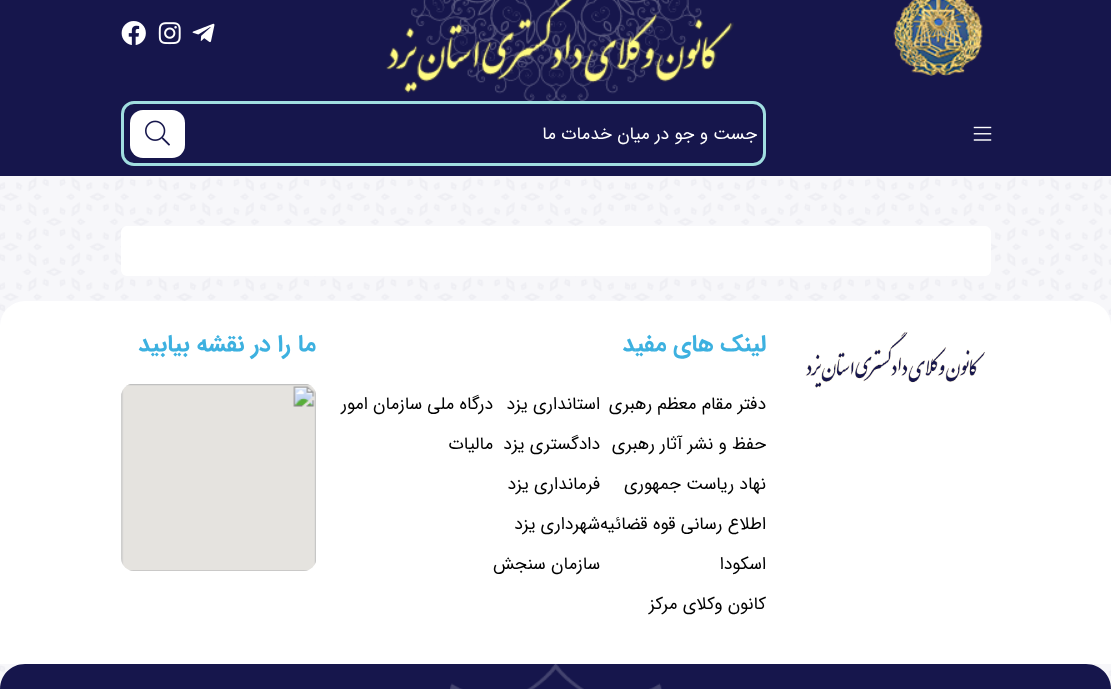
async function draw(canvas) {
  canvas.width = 1111;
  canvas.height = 689;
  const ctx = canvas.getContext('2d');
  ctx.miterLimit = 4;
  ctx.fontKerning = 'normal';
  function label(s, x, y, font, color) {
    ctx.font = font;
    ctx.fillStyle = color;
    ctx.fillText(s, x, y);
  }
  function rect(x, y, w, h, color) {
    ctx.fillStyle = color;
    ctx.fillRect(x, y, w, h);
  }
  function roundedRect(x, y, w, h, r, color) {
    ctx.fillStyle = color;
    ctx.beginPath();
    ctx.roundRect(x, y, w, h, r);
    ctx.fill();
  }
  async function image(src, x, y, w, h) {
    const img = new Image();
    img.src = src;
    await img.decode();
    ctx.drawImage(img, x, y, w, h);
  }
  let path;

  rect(0, 0, 1111, 689, '#f7f7fa');
  await image('assets/img1.png', 0, 177, 1111, 499);
  rect(0, 0, 1111, 176, '#16164c');
  await image('assets/img2.png', 893, 0, 90, 76);
  await image('assets/img3.png', 411, 0, 291, 101);
  await image('assets/img4.png', 386, 0, 348, 93);
  await image('assets/img5.png', 192, 23, 23, 20);
  await image('assets/img6.png', 158, 22, 23, 23);
  await image('assets/img7.png', 121, 21, 25, 24);
  await image('assets/img8.png', 973, 126, 19, 15);
  ctx.beginPath();
  ctx.roundRect(122.5, 102.5, 642, 62, 11.5);
  ctx.strokeStyle = '#a1dee0';
  ctx.lineWidth = 3;
  ctx.stroke();
  ctx.direction = 'rtl';
  label('جست و جو در میان خدمات ما', 757, 139, '17.5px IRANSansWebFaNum', '#fff');
  roundedRect(130, 110, 55, 48, 13, '#fff');
  await image('assets/img9.png', 145, 120, 25, 26);
  roundedRect(121, 226, 870, 50, 6, '#fff');
  ctx.beginPath();
  ctx.roundRect(0, 301, 1111, 363, [25, 25, 0, 0]);
  ctx.fill();
  await image('assets/img10.png', 805, 331, 180, 57);
  label('لینک های مفید', 766, 351, 'bold 23.5px IRANSansWebFaNum', '#3db1e0');
  label('دفتر مقام معظم رهبری', 766, 409, '17.5px IRANSansWebFaNum', '#000');
  label('استانداری یزد', 600, 409, '17.5px IRANSansWebFaNum', '#000');
  label('درگاه ملی سازمان امور', 493, 409, '17.5px IRANSansWebFaNum', '#000');
  label('مالیات', 493, 449, '17.5px IRANSansWebFaNum', '#000');
  label('حفظ و نشر آثار رهبری', 766, 449, '17.5px IRANSansWebFaNum', '#000');
  label('دادگستری یزد', 600, 449, '17.5px IRANSansWebFaNum', '#000');
  label('نهاد ریاست جمهوری', 766, 489, '17.5px IRANSansWebFaNum', '#000');
  label('فرمانداری یزد', 600, 489, '17.5px IRANSansWebFaNum', '#000');
  label('اطلاع رسانی قوه قضائیه', 766, 529, '17.5px IRANSansWebFaNum', '#000');
  label('شهرداری یزد', 600, 529, '17.5px IRANSansWebFaNum', '#000');
  label('اسکودا', 766, 569, '17.5px IRANSansWebFaNum', '#000');
  label('سازمان سنجش', 600, 569, '17.5px IRANSansWebFaNum', '#000');
  label('کانون وکلای مرکز', 766, 609, '17.5px IRANSansWebFaNum', '#000');
  label('ما را در نقشه بیابید', 316, 351, 'bold 23.5px IRANSansWebFaNum', '#3db1e0');
  await image('assets/img11.png', 121, 384, 195, 187);
  ctx.fillStyle = '#16164c';
  path = new Path2D('M25 664H1086C1100 664 1111 675 1111 689V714H0V689C0 675 11 664 25 664Z');
  ctx.fill(path);
  await image('assets/img12.png', 450, 664, 212, 25);
}

draw(document.querySelector('canvas'));
